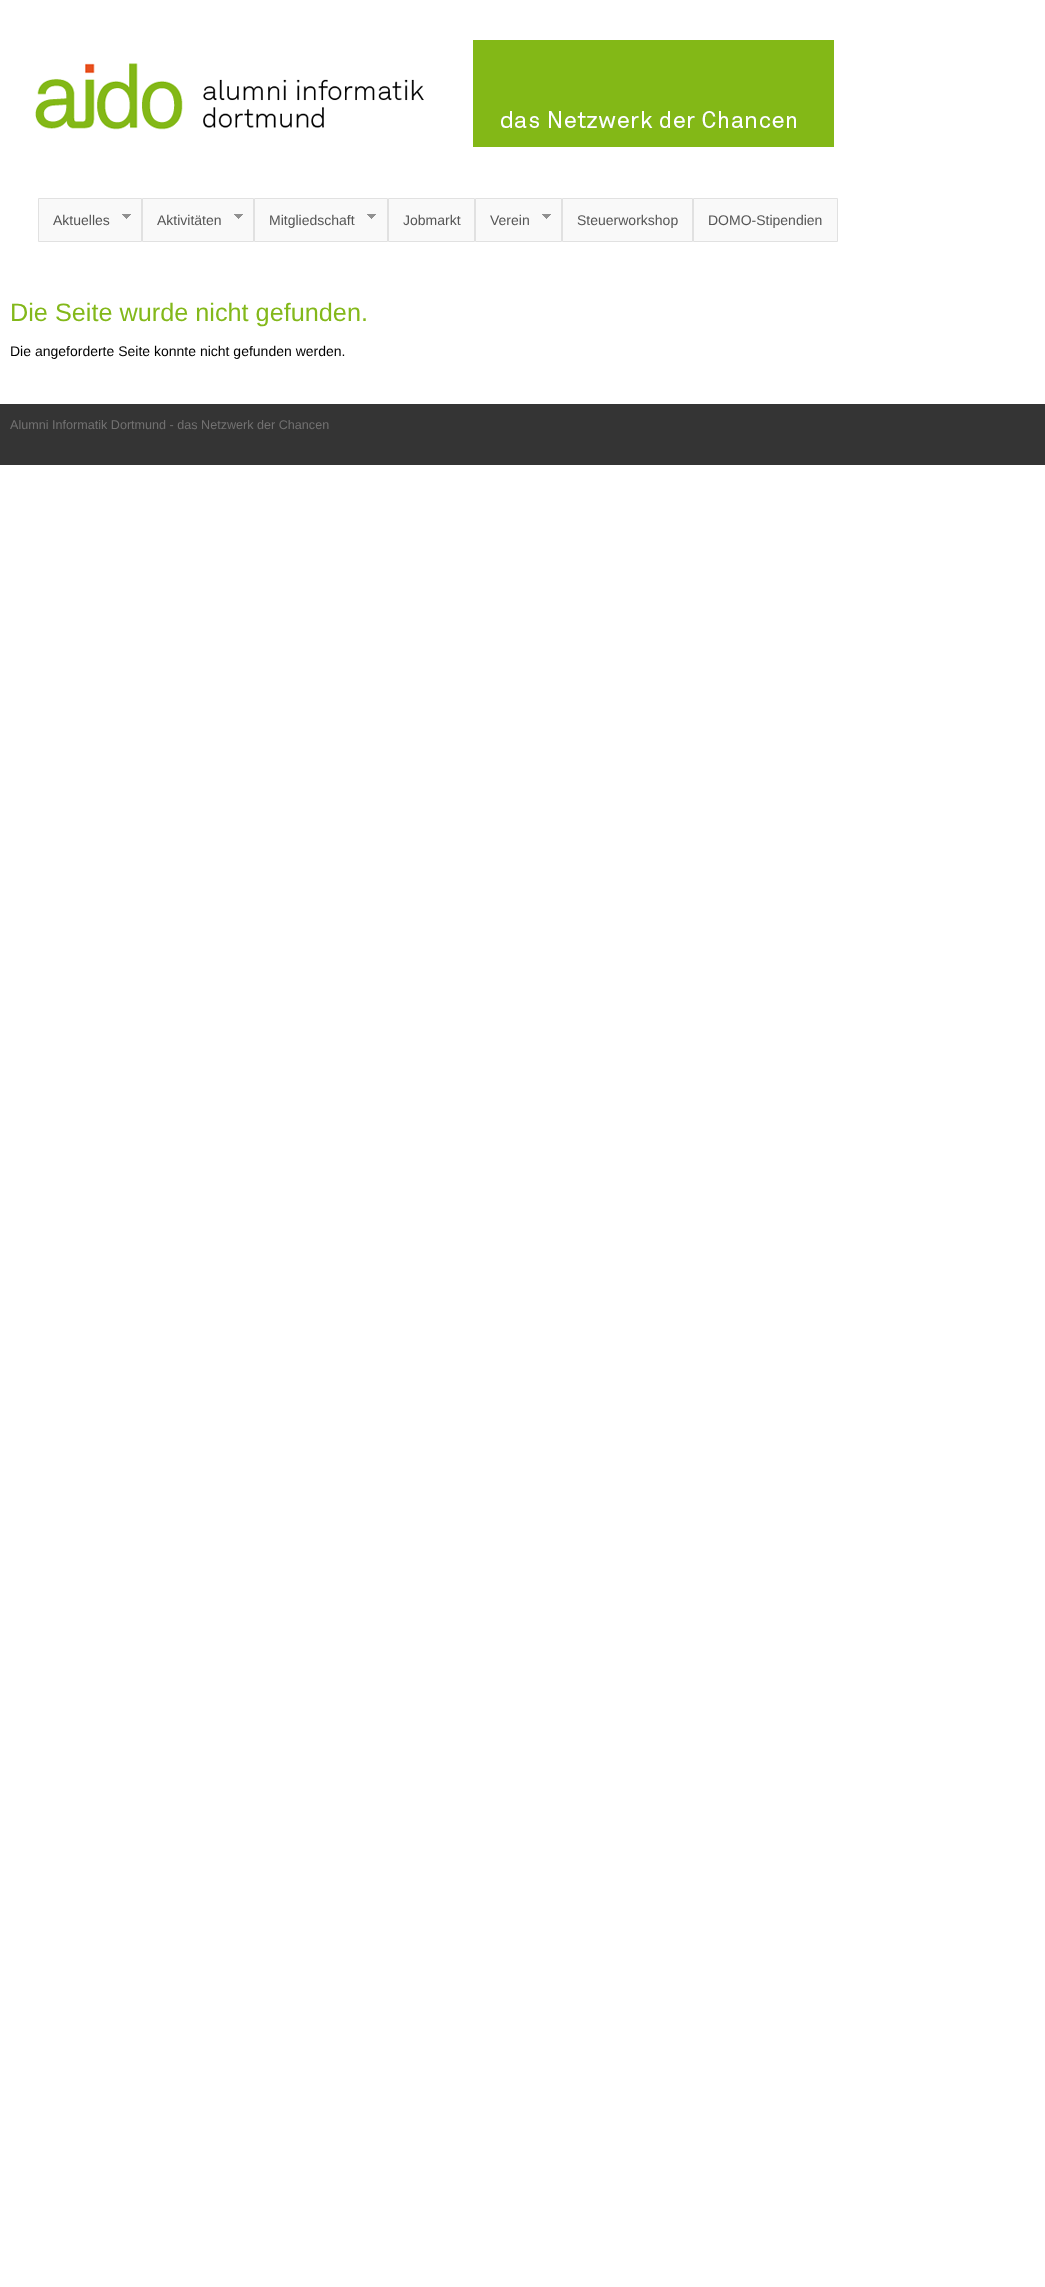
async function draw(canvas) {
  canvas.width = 1045;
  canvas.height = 2287;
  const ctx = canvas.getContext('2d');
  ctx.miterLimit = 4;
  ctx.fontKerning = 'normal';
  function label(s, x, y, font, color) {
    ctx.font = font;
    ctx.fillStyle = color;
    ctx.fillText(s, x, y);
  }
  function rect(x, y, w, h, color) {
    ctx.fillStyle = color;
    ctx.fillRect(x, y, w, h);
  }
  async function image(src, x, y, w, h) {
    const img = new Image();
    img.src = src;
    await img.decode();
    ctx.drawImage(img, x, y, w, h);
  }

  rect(0, 0, 1045, 2287, '#fff');
  await image('assets/img1.png', 35, 40, 799, 107);
  ctx.fillStyle = '#f9f9f9';
  ctx.beginPath();
  ctx.rect(38.5, 198.5, 103, 43);
  ctx.fill();
  ctx.strokeStyle = '#e1e1e1';
  ctx.stroke();
  label('Aktuelles', 53, 225, '14px Liberation Sans', '#555');
  await image('assets/img2.png', 122, 214, 9, 5);
  ctx.fillStyle = '#f9f9f9';
  ctx.beginPath();
  ctx.rect(142.5, 198.5, 111, 43);
  ctx.fill();
  ctx.stroke();
  label('Aktivitäten', 157, 225, '14px Liberation Sans', '#555');
  await image('assets/img2.png', 234, 214, 9, 5);
  ctx.fillStyle = '#f9f9f9';
  ctx.beginPath();
  ctx.rect(254.5, 198.5, 133, 43);
  ctx.fill();
  ctx.stroke();
  label('Mitgliedschaft', 269, 225, '14px Liberation Sans', '#555');
  await image('assets/img2.png', 367, 214, 9, 5);
  ctx.fillStyle = '#f9f9f9';
  ctx.beginPath();
  ctx.rect(388.5, 198.5, 86, 43);
  ctx.fill();
  ctx.stroke();
  label('Jobmarkt', 403, 225, '14px Liberation Sans', '#555');
  ctx.fillStyle = '#f9f9f9';
  ctx.beginPath();
  ctx.rect(475.5, 198.5, 86, 43);
  ctx.fill();
  ctx.stroke();
  label('Verein', 490, 225, '14px Liberation Sans', '#555');
  await image('assets/img2.png', 542, 214, 9, 5);
  ctx.fillStyle = '#f9f9f9';
  ctx.beginPath();
  ctx.rect(562.5, 198.5, 130, 43);
  ctx.fill();
  ctx.stroke();
  label('Steuerworkshop', 577, 225, '14px Liberation Sans', '#555');
  ctx.fillStyle = '#f9f9f9';
  ctx.beginPath();
  ctx.rect(693.5, 198.5, 144, 43);
  ctx.fill();
  ctx.stroke();
  label('DOMO-Stipendien', 708, 225, '14px Liberation Sans', '#555');
  label('Die Seite wurde nicht gefunden.', 10, 321, '25.25px Liberation Sans', '#83b81a');
  label('Die angeforderte Seite konnte nicht gefunden werden.', 10, 356, '14px Liberation Sans', '#000');
  rect(0, 404, 1045, 61, '#343434');
  label('Alumni Informatik Dortmund - das Netzwerk der Chancen', 10, 429, '12.6px Liberation Sans', '#727171');
}

draw(document.querySelector('canvas'));
